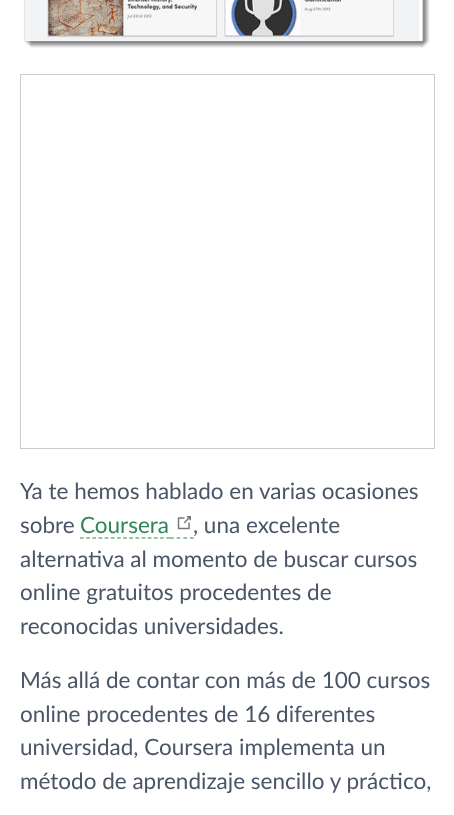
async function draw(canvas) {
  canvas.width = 454;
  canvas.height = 815;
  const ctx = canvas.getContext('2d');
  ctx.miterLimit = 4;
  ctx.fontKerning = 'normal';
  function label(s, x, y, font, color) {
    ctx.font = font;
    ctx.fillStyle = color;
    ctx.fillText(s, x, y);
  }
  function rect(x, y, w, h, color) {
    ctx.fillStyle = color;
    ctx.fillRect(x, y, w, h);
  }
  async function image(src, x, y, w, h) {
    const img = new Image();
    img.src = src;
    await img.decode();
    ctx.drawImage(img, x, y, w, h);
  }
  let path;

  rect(0, 0, 454, 815, '#fff');
  await image('assets/img1.png', 20, 0, 410, 48);
  ctx.strokeStyle = '#ccc';
  ctx.strokeRect(20.5, 74.5, 414, 374);
  label('Ya te hemos hablado en varias ocasiones', 20, 499, '22.5px Lato', '#4a5568');
  label('sobre', 20, 533, '22.5px Lato', '#4a5568');
  label('Coursera', 80, 533, '22.5px Lato', '#2f855a');
  path = new Path2D('M80 538H170');
  ctx.strokeStyle = '#2f855a';
  ctx.lineWidth = 1.2;
  ctx.setLineDash([3.75, 2.41]);
  ctx.stroke(path);
  path = new Path2D('M170 538H194');
  ctx.setLineDash([3.75, 2.91]);
  ctx.stroke(path);
  await image('assets/img2.png', 177, 516, 14, 14);
  label(', una excelente', 193, 533, '22.5px Lato', '#4a5568');
  label('alternativa al momento de buscar cursos', 20, 567, '22.5px Lato', '#4a5568');
  label('online gratuitos procedentes de', 20, 600, '22.5px Lato', '#4a5568');
  label('reconocidas universidades.', 20, 634, '22.5px Lato', '#4a5568');
  label('Más allá de contar con más de 100 cursos', 20, 688, '22.5px Lato', '#4a5568');
  label('online procedentes de 16 diferentes', 20, 722, '22.5px Lato', '#4a5568');
  label('universidad, Coursera implementa un', 20, 755, '22.5px Lato', '#4a5568');
  label('método de aprendizaje sencillo y práctico,', 20, 789, '22.5px Lato', '#4a5568');
}

draw(document.querySelector('canvas'));
